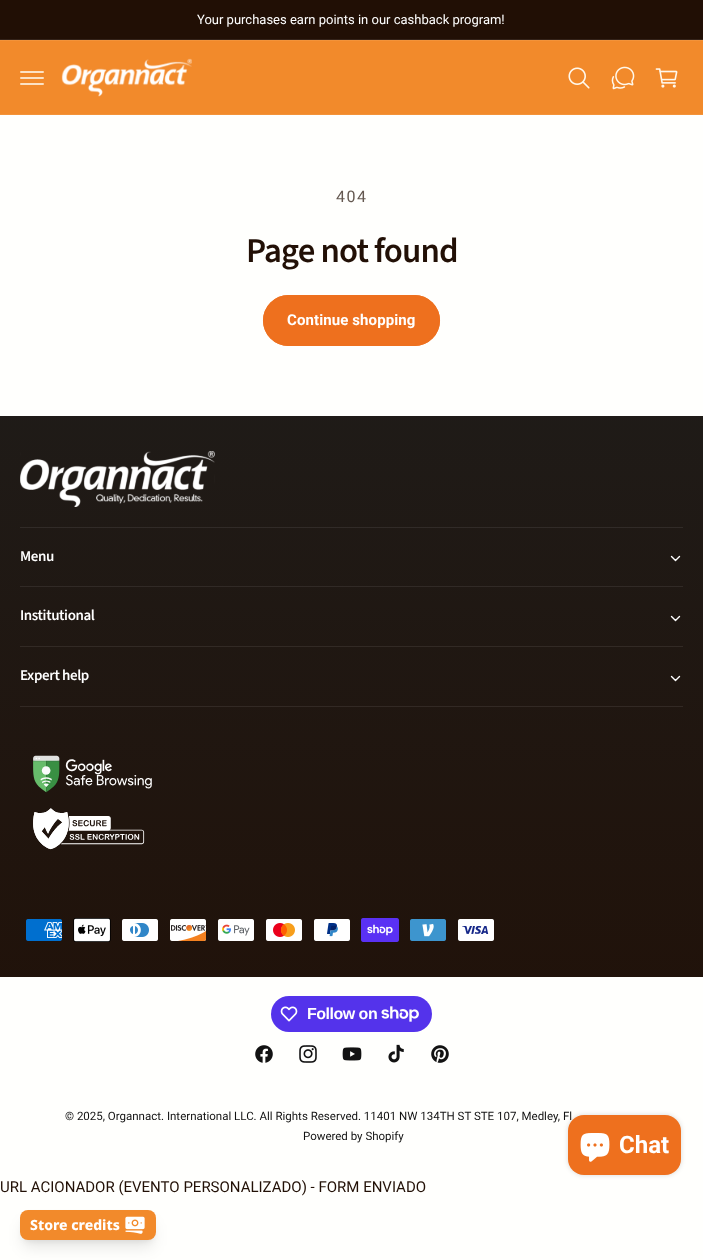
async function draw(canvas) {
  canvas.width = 703;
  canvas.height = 1260;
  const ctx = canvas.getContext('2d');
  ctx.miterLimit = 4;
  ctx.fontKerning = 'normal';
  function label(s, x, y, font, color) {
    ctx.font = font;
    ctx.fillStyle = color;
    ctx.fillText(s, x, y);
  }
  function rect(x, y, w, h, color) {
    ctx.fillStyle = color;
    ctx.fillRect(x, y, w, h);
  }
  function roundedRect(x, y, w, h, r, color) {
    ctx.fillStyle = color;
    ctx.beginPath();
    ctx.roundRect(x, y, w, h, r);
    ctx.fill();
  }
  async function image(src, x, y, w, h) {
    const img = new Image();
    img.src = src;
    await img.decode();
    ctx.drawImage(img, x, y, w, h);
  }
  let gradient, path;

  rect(0, 0, 703, 1260, '#fffffd');
  rect(0, 0, 703, 39, '#210f05');
  rect(0, 39, 703, 1, '#332219');
  label('Your purchases earn points in our cashback program!', 197, 24, '13px Roboto', '#fff');
  rect(0, 41, 703, 73, '#f28a2b');
  rect(0, 40, 703, 1, '#f3933a');
  rect(0, 114, 703, 1, '#f3933a');
  path = new Path2D('M21 72H43M21 78H43M21 84H43');
  ctx.strokeStyle = '#fce2c5';
  ctx.lineWidth = 2;
  ctx.lineCap = 'round';
  ctx.stroke(path);
  await image('assets/img1.png', 61, 58, 131, 39);
  await image('assets/img2.png', 568, 67, 22, 22);
  await image('assets/img3.png', 611, 66, 24, 24);
  await image('assets/img4.png', 655, 68, 23, 20);
  ctx.letterSpacing = '1.5px';
  label('404', 336, 202, '16px Roboto', '#645850');
  ctx.letterSpacing = '-0.9px';
  label('Page not found', 246, 262, '600 34.75px Source Sans Pro', '#221006');
  roundedRect(263, 295, 177, 51, 25.5, '#ee701e');
  ctx.beginPath();
  ctx.roundRect(264, 296, 175, 49, 24.5);
  ctx.strokeStyle = '#ee701e';
  ctx.stroke();
  ctx.letterSpacing = '0.1px';
  label('Continue shopping', 287, 325, 'bold 15px Roboto', '#fff');
  gradient = ctx.createLinearGradient(352, 1260, 352, 0);
  gradient.addColorStop(0.04, '#210f05');
  gradient.addColorStop(1, '#1e2121');
  ctx.fillStyle = gradient;
  ctx.fillRect(0, 416, 703, 561);
  await image('assets/img5.png', 20, 451, 195, 56);
  rect(20, 527, 663, 1, '#312b28');
  rect(20, 586, 663, 1, '#312a26');
  ctx.letterSpacing = '-0.4px';
  label('Menu', 20, 561, '600 15px Source Sans Pro', '#fff');
  path = new Path2D('M671.5 556.5L675.5 560.5L679.5 556.5');
  ctx.strokeStyle = '#fff';
  ctx.lineWidth = 1.4;
  ctx.lineJoin = 'round';
  ctx.stroke(path);
  rect(20, 646, 663, 1, '#322a25');
  label('Institutional', 20, 620, '600 15px Source Sans Pro', '#fff');
  path = new Path2D('M671.5 616.5L675.5 620.5L679.5 616.5');
  ctx.stroke(path);
  rect(20, 706, 663, 1, '#322924');
  label('Expert help', 20, 680, '600 15px Source Sans Pro', '#fff');
  path = new Path2D('M671.5 676.5L675.5 680.5L679.5 676.5');
  ctx.stroke(path);
  await image('assets/img6.png', 33, 755, 119, 95);
  await image('assets/img7.png', 26, 919, 36, 22);
  await image('assets/img8.png', 73, 918, 38, 24);
  await image('assets/img9.png', 122, 919, 36, 22);
  await image('assets/img10.png', 170, 919, 36, 22);
  await image('assets/img11.png', 218, 919, 36, 22);
  await image('assets/img12.png', 266, 919, 36, 22);
  await image('assets/img13.png', 314, 919, 36, 22);
  await image('assets/img14.png', 361, 918, 38, 24);
  await image('assets/img15.png', 410, 919, 36, 22);
  await image('assets/img16.png', 458, 919, 36, 22);
  roundedRect(271, 996, 161, 36, 18, '#5433eb');
  await image('assets/img17.png', 280, 1006, 18, 16);
  ctx.letterSpacing = '-0.5px';
  label('Follow on', 307, 1019, 'bold 16px Liberation Sans', '#fff');
  await image('assets/img18.png', 381, 1006, 38, 16);
  await image('assets/img19.png', 255, 1045, 18, 18);
  await image('assets/img20.png', 299, 1045, 18, 18);
  await image('assets/img21.png', 342, 1047, 20, 14);
  await image('assets/img22.png', 388, 1044, 16, 19);
  await image('assets/img23.png', 431, 1045, 18, 18);
  ctx.letterSpacing = '0px';
  label('© 2025, Organnact. International LLC. All Rights Reserved. 11401 NW 134TH ST STE 107, Medley, Fl', 65, 1120, '11.5px Roboto', '#121212');
  label('Powered by Shopify', 303, 1140, '11.5px Roboto', '#121212');
  ctx.fillStyle = '#00000026';
  ctx.filter = 'blur(2.5px)';
  ctx.beginPath();
  ctx.roundRect(568, 1115, 113, 60, 16);
  ctx.fill();
  ctx.filter = 'none';
  roundedRect(568, 1115, 113, 60, 16, '#ee701e');
  await image('assets/img24.png', 580, 1133, 30, 29);
  label('Chat', 619, 1153, 'bold 24px Roboto', '#fff');
  label('URL ACIONADOR (EVENTO PERSONALIZADO) - FORM ENVIADO', 0, 1192, '15px Roboto', '#221006');
  ctx.fillStyle = '#0000001a';
  ctx.filter = 'blur(3px)';
  ctx.beginPath();
  ctx.roundRect(24, 1218, 128, 22, 4);
  ctx.fill();
  ctx.filter = 'none';
  ctx.filter = 'blur(7.5px)';
  ctx.beginPath();
  ctx.roundRect(23, 1223, 130, 24, 5);
  ctx.fill();
  ctx.filter = 'none';
  roundedRect(20, 1210, 136, 30, 8, '#f28a2b');
  label('Store credits', 30, 1230, '800 14px Noto Sans', '#fff');
  await image('assets/img25.png', 125, 1216, 20, 18);
}

draw(document.querySelector('canvas'));
